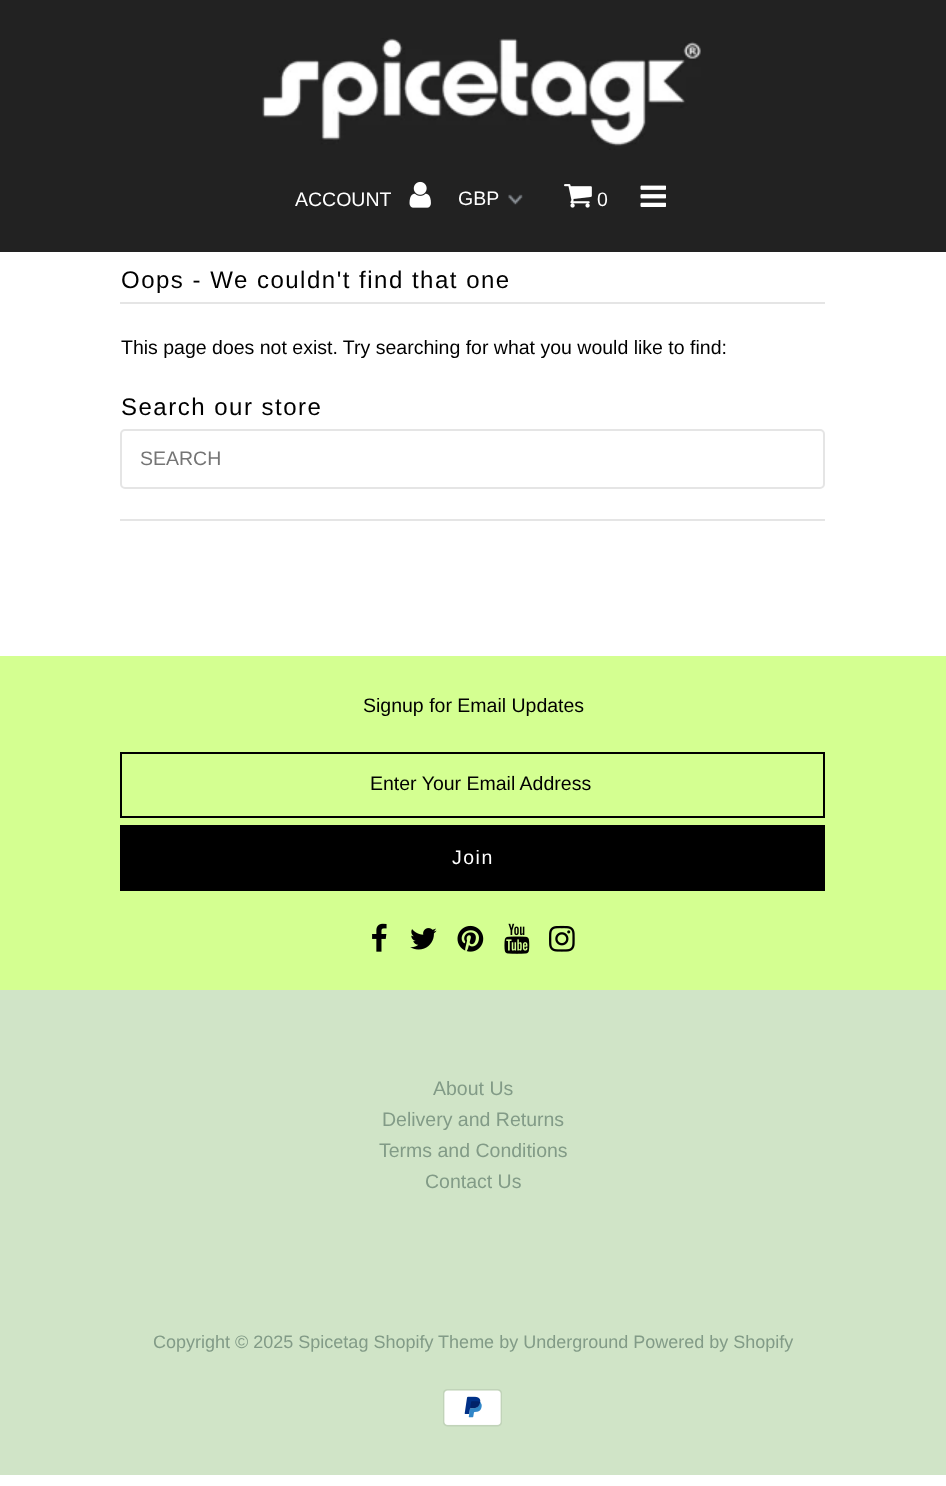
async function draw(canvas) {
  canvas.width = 946;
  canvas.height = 1486;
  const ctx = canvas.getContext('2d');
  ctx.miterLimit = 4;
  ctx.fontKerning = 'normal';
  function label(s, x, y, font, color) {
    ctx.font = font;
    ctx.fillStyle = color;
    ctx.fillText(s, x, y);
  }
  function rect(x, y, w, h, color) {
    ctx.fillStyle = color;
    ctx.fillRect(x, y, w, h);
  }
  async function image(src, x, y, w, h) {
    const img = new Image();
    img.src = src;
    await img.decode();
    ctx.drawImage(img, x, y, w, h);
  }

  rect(0, 0, 946, 1486, '#fff');
  rect(0, 0, 946, 252, '#222');
  await image('assets/img1.png', 262, 38, 439, 112);
  label('ACCOUNT', 295, 206, '19.5px Liberation Sans', '#fff');
  await image('assets/img2.png', 409, 181, 22, 27);
  await image('assets/img3.png', 508, 194, 15, 11);
  label('GBP', 458, 205, '19.5px Liberation Sans', '#fff');
  await image('assets/img4.png', 564, 184, 28, 24);
  label('0', 597, 206, '19.5px Liberation Sans', '#fff');
  await image('assets/img5.png', 640, 185, 26, 22);
  rect(120, 302, 705, 2, '#e5e5e5');
  ctx.letterSpacing = '1.5px';
  label('Oops - We couldn\'t find that one', 121, 288, '24px Liberation Sans', '#000');
  ctx.letterSpacing = '0px';
  label('This page does not exist. Try searching for what you would like to find:', 121, 354, '19.5px Liberation Sans', '#000');
  rect(120, 519, 705, 2, '#e5e5e5');
  ctx.letterSpacing = '1.5px';
  label('Search our store', 121, 415, '24px Liberation Sans', '#000');
  ctx.beginPath();
  ctx.roundRect(121, 430, 703, 58, 4);
  ctx.strokeStyle = '#e5e5e5';
  ctx.lineWidth = 2;
  ctx.stroke();
  ctx.letterSpacing = '0px';
  label('SEARCH', 140, 465, '19.5px Liberation Sans', '#757575');
  rect(0, 656, 946, 334, '#d4ff91');
  label('Signup for Email Updates', 363, 712, '19.5px Liberation Sans', '#000');
  ctx.strokeStyle = '#000';
  ctx.strokeRect(121, 753, 703, 64);
  label('Enter Your Email Address', 370, 790, '19.5px Liberation Sans', '#000');
  rect(120, 825, 705, 66, '#000');
  ctx.letterSpacing = '1.5px';
  label('Join', 452, 864, '19.5px Liberation Sans', '#fff');
  await image('assets/img6.png', 372, 923, 15, 29);
  await image('assets/img7.png', 410, 928, 27, 22);
  await image('assets/img8.png', 457, 925, 27, 27);
  await image('assets/img9.png', 504, 923, 26, 31);
  await image('assets/img10.png', 549, 925, 26, 27);
  rect(0, 990, 946, 485, '#d0e4c7');
  ctx.letterSpacing = '0px';
  label('About Us', 433, 1095, '19.5px Liberation Sans', '#829b87');
  label('Delivery and Returns', 382, 1126, '19.5px Liberation Sans', '#829b87');
  label('Terms and Conditions', 379, 1157, '19.5px Liberation Sans', '#829b87');
  label('Contact Us', 425, 1188, '19.5px Liberation Sans', '#829b87');
  label('Copyright © 2025 Spicetag Shopify Theme by Underground Powered by Shopify', 153, 1348, '18px Liberation Sans', '#829b87');
  await image('assets/img11.png', 443, 1389, 59, 38);
}

draw(document.querySelector('canvas'));
